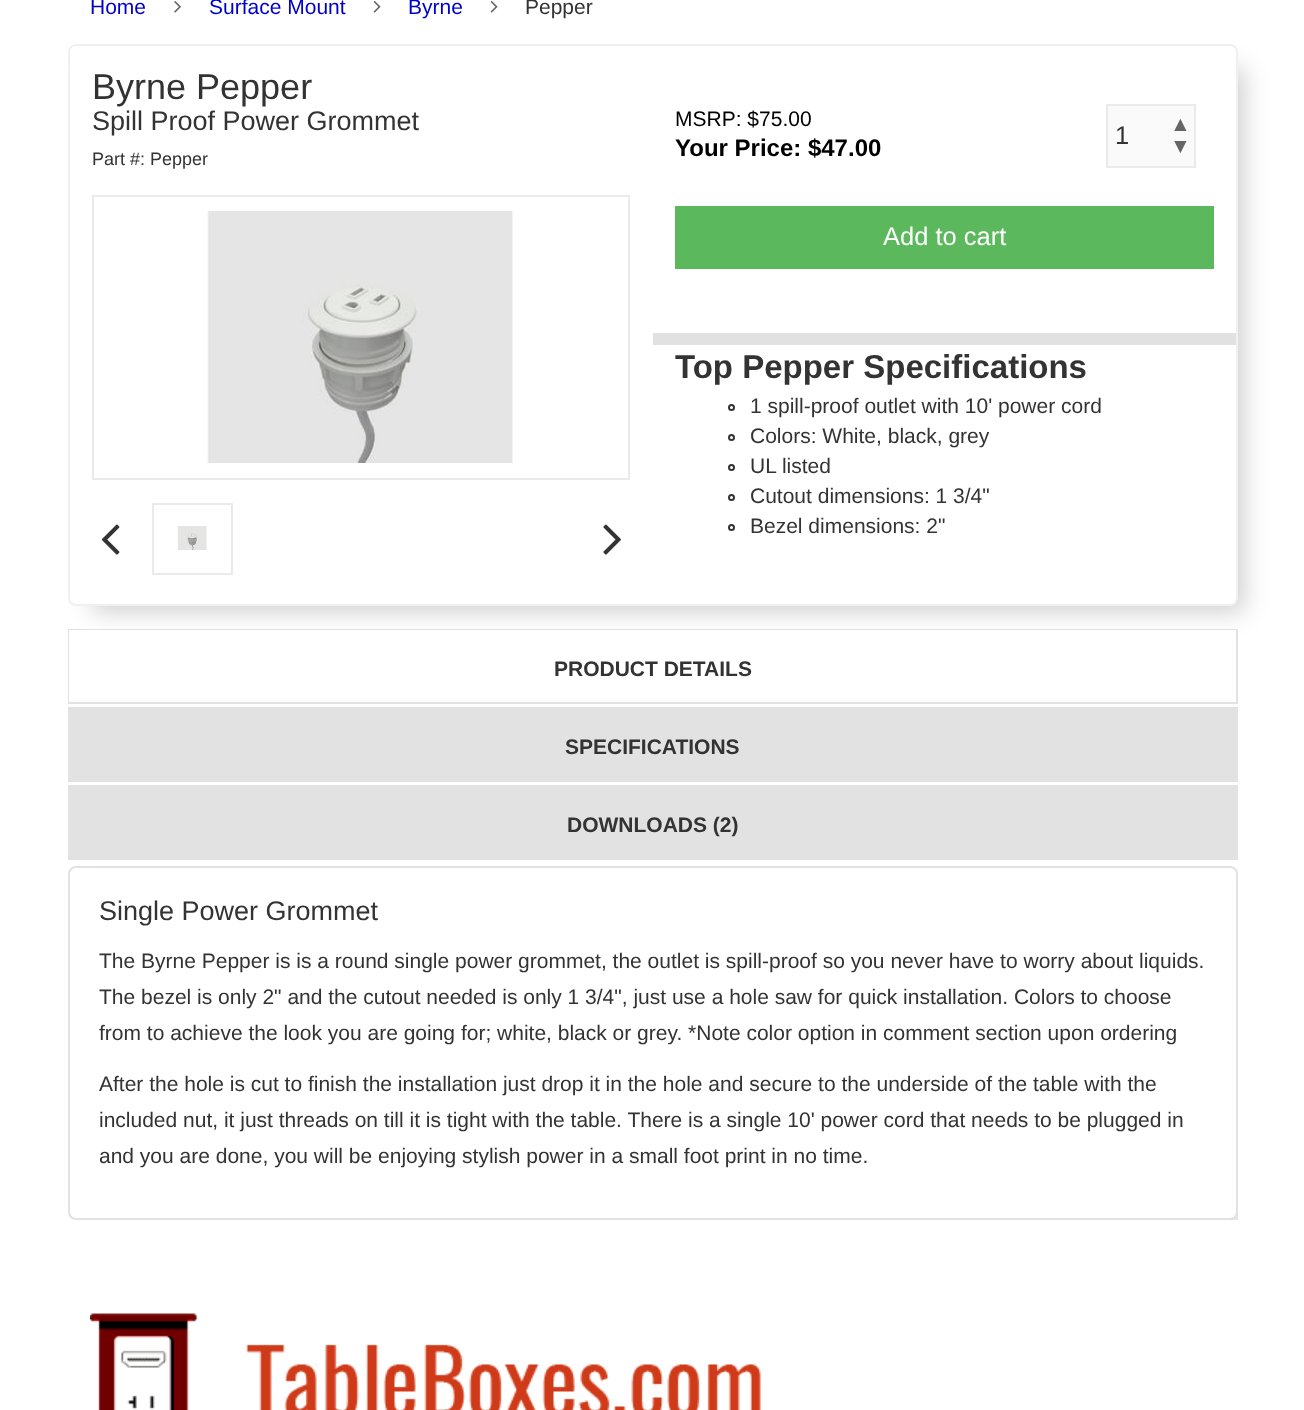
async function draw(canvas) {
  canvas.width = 1304;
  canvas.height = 1410;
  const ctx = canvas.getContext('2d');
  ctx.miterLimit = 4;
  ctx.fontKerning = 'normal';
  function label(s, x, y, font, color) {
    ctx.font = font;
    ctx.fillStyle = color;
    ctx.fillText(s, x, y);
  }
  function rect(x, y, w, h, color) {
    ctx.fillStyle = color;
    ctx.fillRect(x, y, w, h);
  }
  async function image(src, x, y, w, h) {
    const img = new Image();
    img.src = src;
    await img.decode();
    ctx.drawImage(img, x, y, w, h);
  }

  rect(0, 0, 1304, 1410, '#fff');
  label('Home', 90, 14, '21px Liberation Sans', '#00c');
  await image('assets/img1.png', 174, 1, 7, 12);
  label('Surface Mount', 209, 14, '21px Liberation Sans', '#00c');
  await image('assets/img2.png', 373, 1, 8, 12);
  label('Byrne', 408, 14, '21px Liberation Sans', '#00c');
  await image('assets/img2.png', 490, 1, 8, 12);
  label('Pepper', 525, 14, '21px Liberation Sans', '#333');
  ctx.fillStyle = '#00000030';
  ctx.filter = 'blur(12px)';
  ctx.beginPath();
  ctx.rect(92, 68, 1152, 544);
  ctx.fill();
  ctx.filter = 'none';
  ctx.fillStyle = '#fff';
  ctx.beginPath();
  ctx.roundRect(69, 45, 1168, 560, 7);
  ctx.fill();
  ctx.strokeStyle = '#f0f0f0';
  ctx.lineWidth = 2;
  ctx.stroke();
  label('Byrne Pepper', 92, 99, '36px Liberation Sans', '#333');
  label('Spill Proof Power Grommet', 92, 130, '27px Liberation Sans', '#333');
  label('Part #: Pepper', 92, 165, '18px Liberation Sans', '#333');
  ctx.strokeStyle = '#eaeaea';
  ctx.strokeRect(93, 196, 536, 283);
  await image('assets/img3.png', 207, 211, 306, 252);
  ctx.strokeRect(153, 504, 79, 70);
  await image('assets/img4.png', 177, 526, 30, 24);
  await image('assets/img5.png', 101, 524, 19, 31);
  await image('assets/img6.png', 603, 524, 18, 31);
  rect(653, 333, 583, 12, '#e1e1e1');
  label('MSRP: $75.00', 675, 126, '21px Liberation Sans', '#000');
  label('Your Price: $47.00', 675, 156, 'bold 24px Liberation Sans', '#000');
  ctx.fillStyle = '#fafafa';
  ctx.beginPath();
  ctx.rect(1107, 105, 88, 62);
  ctx.fill();
  ctx.stroke();
  label('1', 1115, 144, '25.5px Liberation Sans', '#333');
  label('▲', 1170, 131, '21px Liberation Sans', '#666');
  label('▼', 1170, 153, '21px Liberation Sans', '#666');
  rect(675, 206, 539, 63, '#5cb85c');
  label('Add to cart', 883, 245, '25.5px Liberation Sans', '#fff');
  label('Top Pepper Specifications', 675, 378, 'bold 33px Liberation Sans', '#333');
  ctx.beginPath();
  ctx.arc(731.5, 407.5, 2.5, 0, 2 * Math.PI);
  ctx.strokeStyle = '#333';
  ctx.stroke();
  label('1 spill-proof outlet with 10\' power cord', 750, 413, '21px Liberation Sans', '#333');
  ctx.beginPath();
  ctx.arc(731.5, 437.5, 2.5, 0, 2 * Math.PI);
  ctx.stroke();
  label('Colors: White, black, grey', 750, 443, '21px Liberation Sans', '#333');
  ctx.beginPath();
  ctx.arc(731.5, 467.5, 2.5, 0, 2 * Math.PI);
  ctx.stroke();
  label('UL listed', 750, 473, '21px Liberation Sans', '#333');
  ctx.beginPath();
  ctx.arc(731.5, 497.5, 2.5, 0, 2 * Math.PI);
  ctx.stroke();
  label('Cutout dimensions: 1 3/4"', 750, 503, '21px Liberation Sans', '#333');
  ctx.beginPath();
  ctx.arc(731.5, 527.5, 2.5, 0, 2 * Math.PI);
  ctx.stroke();
  label('Bezel dimensions: 2"', 750, 533, '21px Liberation Sans', '#333');
  rect(68, 629, 1170, 75, '#e2e2e2');
  rect(69, 630, 1167, 72, '#fff');
  label('PRODUCT DETAILS', 554, 676, 'bold 21px Liberation Sans', '#333');
  rect(68, 707, 1170, 75, '#e2e2e2');
  label('SPECIFICATIONS', 565, 754, 'bold 21px Liberation Sans', '#333');
  ctx.save();
  ctx.beginPath();
  ctx.rect(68, 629, 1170, 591);
  ctx.clip();
  ctx.fillStyle = '#00000030';
  ctx.filter = 'blur(12px)';
  ctx.beginPath();
  ctx.rect(92, 890, 1152, 336);
  ctx.fill();
  ctx.filter = 'none';
  ctx.restore();
  rect(68, 785, 1170, 75, '#e2e2e2');
  label('DOWNLOADS (2)', 567, 832, 'bold 21px Liberation Sans', '#333');
  ctx.fillStyle = '#fff';
  ctx.beginPath();
  ctx.roundRect(69, 867, 1168, 352, 7);
  ctx.fill();
  ctx.strokeStyle = '#e2e2e2';
  ctx.stroke();
  label('Single Power Grommet', 99, 920, '27px Liberation Sans', '#333');
  label('The Byrne Pepper is is a round single power grommet, the outlet is spill-proof so you never have to worry about liquids.', 99, 968, '21px Liberation Sans', '#333');
  label('The bezel is only 2" and the cutout needed is only 1 3/4", just use a hole saw for quick installation. Colors to choose', 99, 1004, '21px Liberation Sans', '#333');
  label('from to achieve the look you are going for; white, black or grey. *Note color option in comment section upon ordering', 99, 1040, '21px Liberation Sans', '#333');
  label('After the hole is cut to finish the installation just drop it in the hole and secure to the underside of the table with the', 99, 1091, '21px Liberation Sans', '#333');
  label('included nut, it just threads on till it is tight with the table. There is a single 10\' power cord that needs to be plugged in', 99, 1127, '21px Liberation Sans', '#333');
  label('and you are done, you will be enjoying stylish power in a small foot print in no time.', 99, 1163, '21px Liberation Sans', '#333');
  await image('assets/img7.png', 90, 1313, 671, 97);
}

draw(document.querySelector('canvas'));
